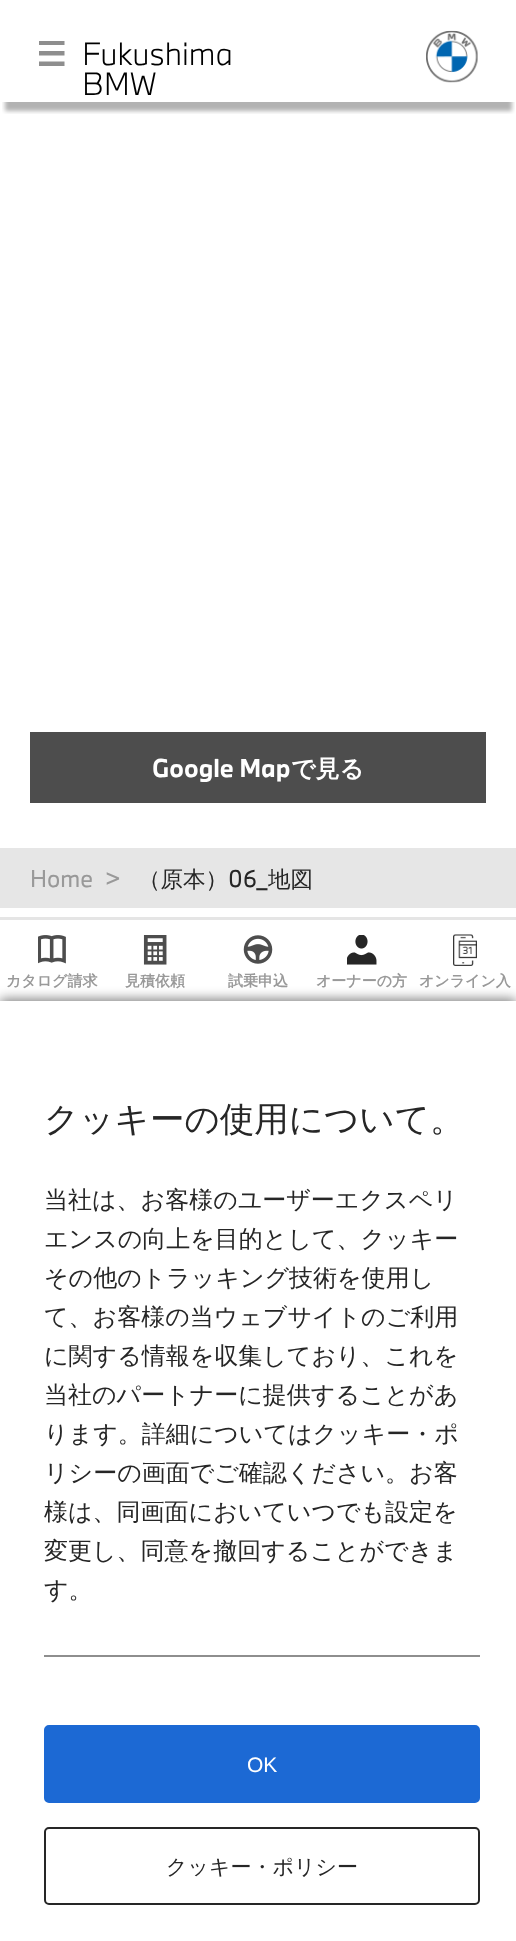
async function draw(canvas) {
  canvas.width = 516;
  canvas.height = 1941;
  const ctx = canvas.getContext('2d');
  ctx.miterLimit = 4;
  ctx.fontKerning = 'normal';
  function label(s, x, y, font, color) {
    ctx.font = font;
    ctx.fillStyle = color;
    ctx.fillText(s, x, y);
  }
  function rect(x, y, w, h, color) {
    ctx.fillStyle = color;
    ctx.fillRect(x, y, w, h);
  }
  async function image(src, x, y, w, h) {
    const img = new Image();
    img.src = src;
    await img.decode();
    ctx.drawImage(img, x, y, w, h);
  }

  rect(0, 0, 516, 1941, '#fff');
  ctx.save();
  ctx.beginPath();
  ctx.rect(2, 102, 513, 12);
  ctx.clip();
  ctx.fillStyle = '#0000004d';
  ctx.filter = 'blur(2px)';
  ctx.beginPath();
  ctx.rect(5, 18, 507, 93);
  ctx.fill();
  ctx.filter = 'none';
  ctx.restore();
  await image('assets/img1.png', 39, 41, 26, 25);
  label('Fukushima', 82, 65, '300 30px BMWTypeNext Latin', '#000');
  label('BMW', 82, 95, '300 30px BMWTypeNext Latin', '#000');
  await image('assets/img2.png', 426, 30, 52, 53);
  rect(30, 732, 456, 71, '#4d4d4d');
  label('Google Map', 152, 777, 'bold 24px BMWTypeNext Latin', '#fff');
  label('で見る', 291, 777, 'bold 24px WenQuanYi Zen Hei', '#fff');
  rect(0, 848, 516, 60, '#e6e6e6');
  label('Home', 30, 887, '22.5px BMWTypeNext Latin', '#999');
  label('>', 105, 887, '22.5px BMWTypeNext Latin', '#999');
  label('（原本）', 138, 887, '500 22.5px WenQuanYi Zen Hei', '#262626');
  label('06_', 228, 887, '22.5px BMWTypeNext Latin', '#262626');
  label('地図', 268, 887, '500 22.5px WenQuanYi Zen Hei', '#262626');
  rect(0, 917, 516, 3, '#e5e5e5');
  await image('assets/img3.png', 38, 935, 28, 29);
  label('カタログ請求', 6, 986, 'bold 15px WenQuanYi Zen Hei', '#999');
  await image('assets/img4.png', 143, 935, 24, 30);
  label('見積依頼', 125, 986, 'bold 15px WenQuanYi Zen Hei', '#999');
  await image('assets/img5.png', 243, 935, 30, 29);
  label('試乗申込', 228, 986, 'bold 15px WenQuanYi Zen Hei', '#999');
  await image('assets/img6.png', 347, 935, 30, 30);
  label('オーナーの方', 316, 986, 'bold 15px WenQuanYi Zen Hei', '#999');
  await image('assets/img7.png', 453, 934, 24, 32);
  label('オンライン入', 419, 986, 'bold 15px WenQuanYi Zen Hei', '#999');
  ctx.fillStyle = '#00000080';
  ctx.filter = 'blur(6px)';
  ctx.beginPath();
  ctx.rect(0, 999, 516, 941);
  ctx.fill();
  ctx.filter = 'none';
  rect(0, 1001, 516, 940, '#fff');
  label('クッキーの使用について。', 44, 1131, '500 34.5px WenQuanYi Zen Hei', '#262626');
  label('当社は、お客様のユーザーエクスペリ', 44, 1208, '500 24px WenQuanYi Zen Hei', '#262626');
  label('エンスの向上を目的として、クッキー', 44, 1247, '500 24px WenQuanYi Zen Hei', '#262626');
  label('その他のトラッキング技術を使用し', 44, 1286, '500 24px WenQuanYi Zen Hei', '#262626');
  label('て、お客様の当ウェブサイトのご利用', 44, 1325, '500 24px WenQuanYi Zen Hei', '#262626');
  label('に関する情報を収集しており、これを', 44, 1364, '500 24px WenQuanYi Zen Hei', '#262626');
  label('当社のパートナーに提供することがあ', 44, 1403, '500 24px WenQuanYi Zen Hei', '#262626');
  label('ります。詳細についてはクッキー・ポ', 44, 1442, '500 24px WenQuanYi Zen Hei', '#262626');
  label('リシーの画面でご確認ください。お客', 44, 1481, '500 24px WenQuanYi Zen Hei', '#262626');
  label('様は、同画面においていつでも設定を', 44, 1520, '500 24px WenQuanYi Zen Hei', '#262626');
  label('変更し、同意を撤回することができま', 44, 1559, '500 24px WenQuanYi Zen Hei', '#262626');
  label('す。', 44, 1598, '500 24px WenQuanYi Zen Hei', '#262626');
  rect(44, 1655, 436, 2, '#8e8e8e');
  ctx.fillStyle = '#1c69d4';
  ctx.beginPath();
  ctx.roundRect(45, 1726, 434, 76, 4);
  ctx.fill();
  ctx.strokeStyle = '#1c69d4';
  ctx.lineWidth = 2;
  ctx.stroke();
  label('OK', 247, 1772, '21px Liberation Sans', '#fff');
  ctx.beginPath();
  ctx.roundRect(45, 1828, 434, 76, 4);
  ctx.strokeStyle = '#262626';
  ctx.stroke();
  label('クッキー・ポリシー', 166, 1874, '500 21px WenQuanYi Zen Hei', '#262626');
}

draw(document.querySelector('canvas'));
